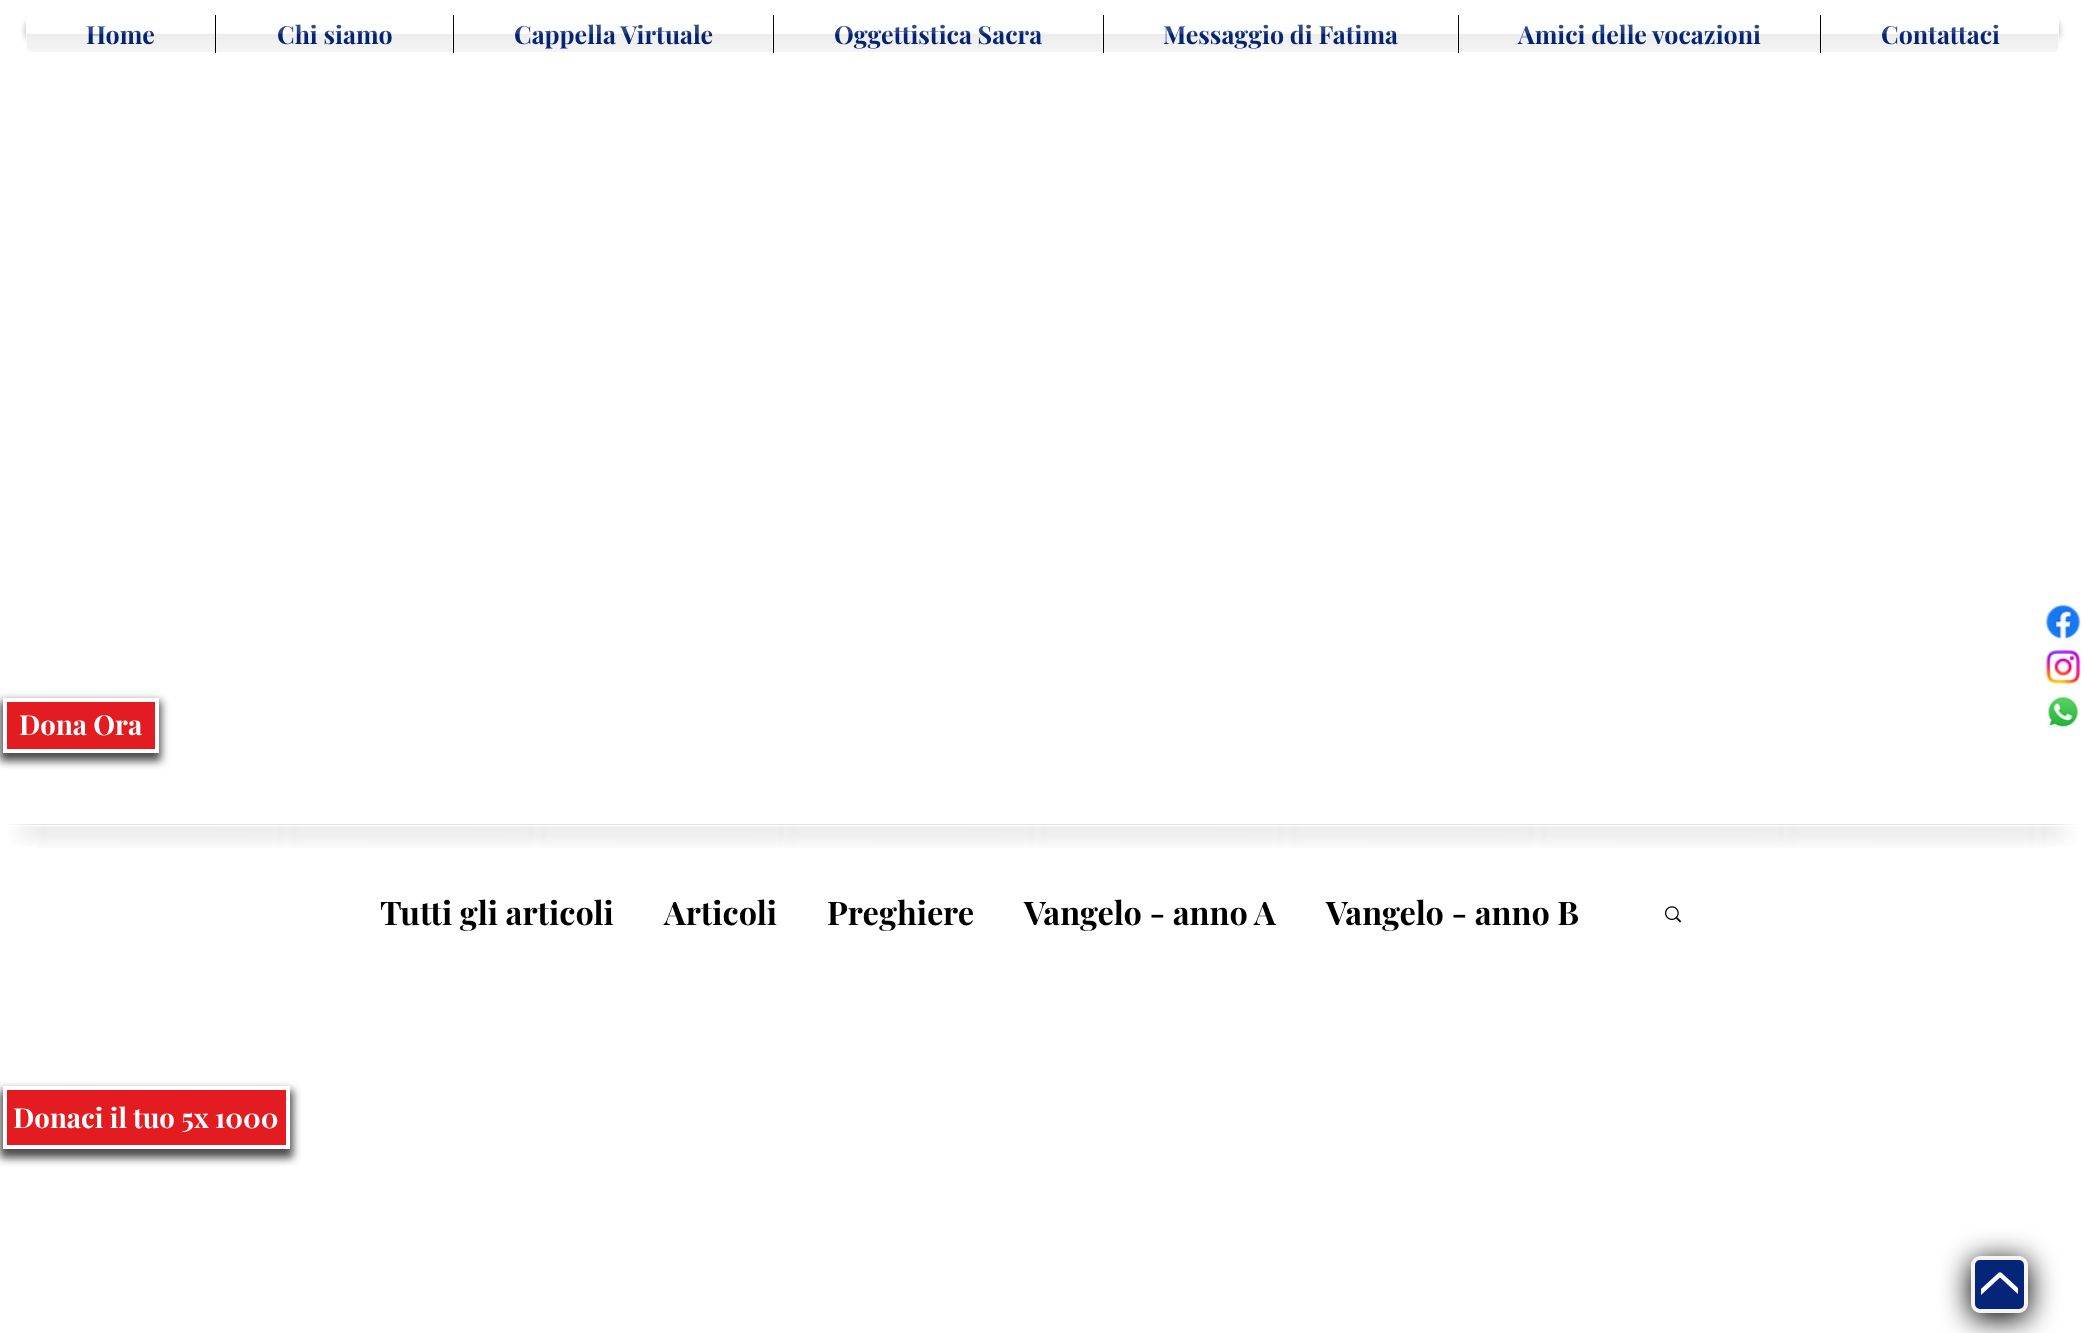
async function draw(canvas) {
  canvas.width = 2084;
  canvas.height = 1333;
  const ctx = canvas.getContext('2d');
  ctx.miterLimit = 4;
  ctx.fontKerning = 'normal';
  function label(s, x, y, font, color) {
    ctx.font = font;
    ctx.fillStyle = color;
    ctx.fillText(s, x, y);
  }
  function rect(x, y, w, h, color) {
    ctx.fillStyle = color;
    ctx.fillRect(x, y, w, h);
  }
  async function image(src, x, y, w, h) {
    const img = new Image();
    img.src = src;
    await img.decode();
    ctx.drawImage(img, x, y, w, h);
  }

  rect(0, 0, 2084, 1333, '#fff');
  ctx.fillStyle = '#00000054';
  ctx.filter = 'blur(3px)';
  ctx.beginPath();
  ctx.roundRect(26, 21, 2033, 19, 6);
  ctx.fill();
  ctx.filter = 'none';
  ctx.fillStyle = '#fff';
  ctx.beginPath();
  ctx.roundRect(26, 15, 189, 38, [6, 0, 0, 6]);
  ctx.fill();
  label('Home', 86, 44, 'bold 25px Playfair Display', '#052678');
  await image('assets/img1.png', 26, 26, 189, 26);
  rect(216, 15, 237, 31, '#fff');
  rect(215, 15, 1, 38, '#000');
  label('Chi siamo', 277, 44, 'bold 25px Playfair Display', '#052678');
  await image('assets/img2.png', 216, 24, 237, 28);
  rect(454, 15, 319, 31, '#fff');
  rect(453, 15, 1, 38, '#000');
  label('Cappella Virtuale', 514, 44, 'bold 25px Playfair Display', '#052678');
  await image('assets/img3.png', 453, 15, 320, 37);
  rect(774, 15, 329, 31, '#fff');
  rect(773, 15, 1, 38, '#000');
  label('Oggettistica Sacra', 834, 44, 'bold 25px Playfair Display', '#052678');
  await image('assets/img4.png', 773, 15, 330, 37);
  rect(1104, 15, 354, 31, '#fff');
  rect(1103, 15, 1, 38, '#000');
  label('Messaggio di Fatima', 1163, 44, 'bold 25px Playfair Display', '#052678');
  await image('assets/img5.png', 1103, 15, 355, 37);
  rect(1459, 15, 361, 31, '#fff');
  rect(1458, 15, 1, 38, '#000');
  label('Amici delle vocazioni', 1518, 44, 'bold 25px Playfair Display', '#052678');
  await image('assets/img6.png', 1458, 15, 362, 37);
  ctx.fillStyle = '#fff';
  ctx.beginPath();
  ctx.roundRect(1820, 15, 239, 38, [0, 6, 6, 0]);
  ctx.fill();
  rect(1820, 15, 1, 38, '#000');
  label('Contattaci', 1881, 44, 'bold 25px Playfair Display', '#052678');
  await image('assets/img7.png', 1821, 24, 238, 28);
  ctx.fillStyle = '#000000b3';
  ctx.filter = 'blur(4.5px)';
  ctx.beginPath();
  ctx.rect(0, 701, 161, 60);
  ctx.fill();
  ctx.filter = 'none';
  ctx.fillStyle = '#e21c21';
  ctx.beginPath();
  ctx.rect(5, 700, 152, 51);
  ctx.fill();
  ctx.strokeStyle = '#fff';
  ctx.lineWidth = 4;
  ctx.stroke();
  label('Dona Ora', 19, 735, 'bold 27.5px Playfair Display', '#fff');
  await image('assets/img8.png', 2045, 604, 36, 35);
  await image('assets/img9.png', 2046, 649, 35, 35);
  await image('assets/img10.png', 2046, 696, 34, 33);
  await image('assets/img12.png', 37, 824, 2011, 24);
  await image('assets/img11.png', 8, 824, 30, 22);
  await image('assets/img13.png', 2047, 824, 30, 22);
  label('Tutti gli articoli', 380, 925, 'bold 32.5px Playfair Display', '#000');
  label('Articoli', 664, 925, 'bold 32.5px Playfair Display', '#000');
  label('Preghiere', 827, 925, 'bold 32.5px Playfair Display', '#000');
  label('Vangelo - anno A', 1024, 925, 'bold 32.5px Playfair Display', '#000');
  label('Vangelo - anno B', 1326, 925, 'bold 32.5px Playfair Display', '#000');
  await image('assets/img14.png', 1665, 906, 17, 17);
  ctx.fillStyle = '#000000b3';
  ctx.filter = 'blur(4.5px)';
  ctx.beginPath();
  ctx.rect(0, 1090, 293, 68);
  ctx.fill();
  ctx.filter = 'none';
  ctx.fillStyle = '#e21c21';
  ctx.beginPath();
  ctx.rect(5, 1088, 283, 59);
  ctx.fill();
  ctx.stroke();
  label('Donaci il tuo 5x 1000', 13, 1128, 'bold 27.5px Playfair Display', '#fff');
  ctx.fillStyle = '#000';
  ctx.filter = 'blur(14.5px)';
  ctx.beginPath();
  ctx.roundRect(1970, 1260, 59, 59, 10);
  ctx.fill();
  ctx.filter = 'none';
  ctx.fillStyle = '#052678';
  ctx.beginPath();
  ctx.roundRect(1973, 1258, 53, 53, 7);
  ctx.fill();
  ctx.strokeStyle = '#f6f5f5';
  ctx.stroke();
  await image('assets/img15.png', 1981, 1272, 37, 23);
}

draw(document.querySelector('canvas'));
